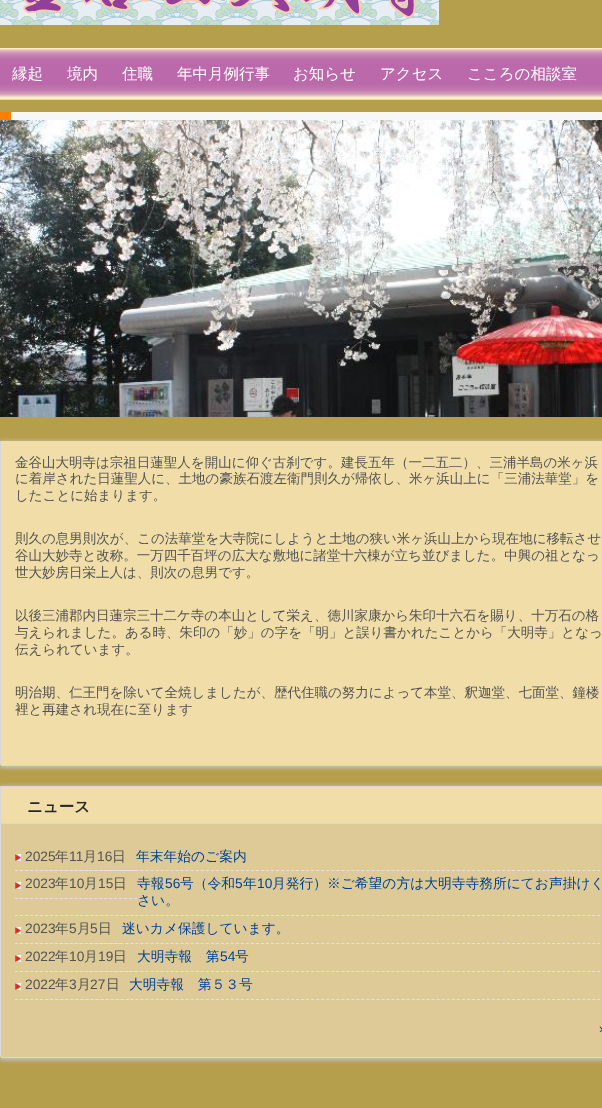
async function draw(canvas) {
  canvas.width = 602;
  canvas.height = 1108;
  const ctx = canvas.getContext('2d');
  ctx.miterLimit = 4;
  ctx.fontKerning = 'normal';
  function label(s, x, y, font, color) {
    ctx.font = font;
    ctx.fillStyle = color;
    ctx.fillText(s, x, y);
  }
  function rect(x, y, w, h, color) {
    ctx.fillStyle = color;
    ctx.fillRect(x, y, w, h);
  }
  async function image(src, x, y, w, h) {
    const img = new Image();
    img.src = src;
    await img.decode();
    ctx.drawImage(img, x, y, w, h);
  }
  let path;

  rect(0, 0, 602, 1108, '#b69f4c');
  await image('assets/img1.png', 0, 0, 439, 25);
  await image('assets/img2.png', 0, 48, 602, 52);
  label('縁起', 12, 79, '500 15.5px WenQuanYi Zen Hei', '#fff');
  label('境内', 67, 79, '500 15.5px WenQuanYi Zen Hei', '#fff');
  label('住職', 122, 79, '500 15.5px WenQuanYi Zen Hei', '#fff');
  label('年中月例行事', 177, 79, '500 15.5px WenQuanYi Zen Hei', '#fff');
  label('お知らせ', 293, 79, '500 15.5px WenQuanYi Zen Hei', '#fff');
  label('アクセス', 380, 79, '500 15.5px WenQuanYi Zen Hei', '#fff');
  label('こころの相談室', 467, 79, '500 15.5px WenQuanYi Zen Hei', '#fff');
  await image('assets/img3.png', 0, 112, 602, 8);
  await image('assets/img4.png', 0, 120, 602, 297);
  ctx.fillStyle = '#c4c4c4';
  ctx.filter = 'blur(2px)';
  ctx.beginPath();
  ctx.roundRect(-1, 441, 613, 327, 4);
  ctx.fill();
  ctx.filter = 'none';
  ctx.fillStyle = '#f0dda7';
  path = new Path2D('M0 441H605V763C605 764.5 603.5 766 602 766H3C1.5 766 0 764.5 0 763Z');
  ctx.fill(path);
  ctx.fillStyle = '#d8d8d8';
  path = new Path2D('M0 441H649V763C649 765 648 766 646 766H3C1 766 0 765 0 763ZM1 441H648V763C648 764 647 765 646 765H3C2 765 1 764 1 763Z');
  ctx.fill(path, 'evenodd');
  label('金谷山大明寺は宗祖日蓮聖人を開山に仰ぐ古刹です。建長五年（一二五二）、三浦半島の米ヶ浜', 15, 467, '500 13.5px WenQuanYi Zen Hei', '#535353');
  label('に着岸された日蓮聖人に、土地の豪族石渡左衛門則久が帰依し、米ヶ浜山上に「三浦法華堂」を', 15, 483, '500 13.5px WenQuanYi Zen Hei', '#535353');
  label('したことに始まります。', 15, 500, '500 13.5px WenQuanYi Zen Hei', '#535353');
  label('則久の息男則次が、この法華堂を大寺院にしようと土地の狭い米ヶ浜山上から現在地に移転させ', 15, 543, '500 13.5px WenQuanYi Zen Hei', '#535353');
  label('谷山大妙寺と改称。一万四千百坪の広大な敷地に諸堂十六棟が立ち並びました。中興の祖となっ', 15, 560, '500 13.5px WenQuanYi Zen Hei', '#535353');
  label('世大妙房日栄上人は、則次の息男です。', 15, 577, '500 13.5px WenQuanYi Zen Hei', '#535353');
  label('以後三浦郡内日蓮宗三十二ケ寺の本山として栄え、徳川家康から朱印十六石を賜り、十万石の格', 15, 620, '500 13.5px WenQuanYi Zen Hei', '#535353');
  label('与えられました。ある時、朱印の「妙」の字を「明」と誤り書かれたことから「大明寺」となっ', 15, 637, '500 13.5px WenQuanYi Zen Hei', '#535353');
  label('伝えられています。', 15, 654, '500 13.5px WenQuanYi Zen Hei', '#535353');
  label('明治期、仁王門を除いて全焼しましたが、歴代住職の努力によって本堂、釈迦堂、七面堂、鐘楼', 15, 697, '500 13.5px WenQuanYi Zen Hei', '#535353');
  label('裡と再建され現在に至ります', 15, 714, '500 13.5px WenQuanYi Zen Hei', '#535353');
  ctx.fillStyle = '#c4c4c4';
  ctx.filter = 'blur(2px)';
  ctx.beginPath();
  ctx.roundRect(-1, 786, 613, 274, 4);
  ctx.fill();
  ctx.filter = 'none';
  ctx.fillStyle = '#ddca96';
  path = new Path2D('M0 786H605V1055C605 1056.5 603.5 1058 602 1058H3C1.5 1058 0 1056.5 0 1055Z');
  ctx.fill(path);
  ctx.fillStyle = '#d8d8d8';
  path = new Path2D('M0 786H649V1055C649 1057 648 1058 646 1058H3C1 1058 0 1057 0 1055ZM1 786H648V1055C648 1056 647 1057 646 1057H3C2 1057 1 1056 1 1055Z');
  ctx.fill(path, 'evenodd');
  rect(1, 787, 601, 36, '#f0dda7');
  rect(1, 786, 601, 1, '#d8d8d8');
  rect(1, 823, 601, 1, '#d8d8d8');
  label('ニュース', 27, 812, 'bold 15.5px WenQuanYi Zen Hei', '#272727');
  await image('assets/img5.png', 15, 854, 6, 7);
  path = new Path2D('M15 870.5H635');
  ctx.strokeStyle = '#e2e2e2';
  ctx.setLineDash([3, 2.02]);
  ctx.stroke(path);
  path = new Path2D('M15 870.5H136');
  ctx.setLineDash([3, 1.92]);
  ctx.stroke(path);
  label('2025', 25, 861, '13.75px Liberation Sans', '#535353');
  label('年', 55, 861, '500 13.75px WenQuanYi Zen Hei', '#535353');
  label('11', 69, 861, '13.75px Liberation Sans', '#535353');
  label('月', 83, 861, '500 13.75px WenQuanYi Zen Hei', '#535353');
  label('16', 97, 861, '13.75px Liberation Sans', '#535353');
  label('日', 112, 861, '500 13.75px WenQuanYi Zen Hei', '#535353');
  label('年末年始のご案内', 136, 861, '500 13.75px WenQuanYi Zen Hei', '#004098');
  await image('assets/img5.png', 15, 882, 6, 7);
  path = new Path2D('M15 898.5H137');
  ctx.setLineDash([3, 1.96]);
  ctx.stroke(path);
  label('2023', 25, 888, '13.75px Liberation Sans', '#535353');
  label('年', 55, 888, '500 13.75px WenQuanYi Zen Hei', '#535353');
  label('10', 69, 888, '13.75px Liberation Sans', '#535353');
  label('月', 84, 888, '500 13.75px WenQuanYi Zen Hei', '#535353');
  label('15', 98, 888, '13.75px Liberation Sans', '#535353');
  label('日', 113, 888, '500 13.75px WenQuanYi Zen Hei', '#535353');
  path = new Path2D('M15 915.5H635');
  ctx.setLineDash([3, 2.02]);
  ctx.stroke(path);
  label('寺報', 137, 888, '500 13.75px WenQuanYi Zen Hei', '#004098');
  label('56', 165, 888, '13.75px Liberation Sans', '#004098');
  label('号（令和', 180, 888, '500 13.75px WenQuanYi Zen Hei', '#004098');
  label('5', 235, 888, '13.75px Liberation Sans', '#004098');
  label('年', 243, 888, '500 13.75px WenQuanYi Zen Hei', '#004098');
  label('10', 257, 888, '13.75px Liberation Sans', '#004098');
  label('月発行）※ご希望の方は大明寺寺務所にてお声掛けく', 272, 888, '500 13.75px WenQuanYi Zen Hei', '#004098');
  label('さい。', 137, 905, '500 13.75px WenQuanYi Zen Hei', '#004098');
  await image('assets/img5.png', 15, 927, 6, 7);
  path = new Path2D('M15 943.5H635');
  ctx.stroke(path);
  path = new Path2D('M15 943.5H122');
  ctx.setLineDash([3, 1.95]);
  ctx.stroke(path);
  label('2023', 25, 933, '13.75px Liberation Sans', '#535353');
  label('年', 55, 933, '500 13.75px WenQuanYi Zen Hei', '#535353');
  label('5', 69, 933, '13.75px Liberation Sans', '#535353');
  label('月', 77, 933, '500 13.75px WenQuanYi Zen Hei', '#535353');
  label('5', 90, 933, '13.75px Liberation Sans', '#535353');
  label('日', 98, 933, '500 13.75px WenQuanYi Zen Hei', '#535353');
  label('迷いカメ保護しています。', 122, 933, '500 13.75px WenQuanYi Zen Hei', '#004098');
  await image('assets/img5.png', 15, 955, 6, 7);
  path = new Path2D('M15 971.5H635');
  ctx.setLineDash([3, 2.02]);
  ctx.stroke(path);
  path = new Path2D('M15 971.5H137');
  ctx.setLineDash([3, 1.96]);
  ctx.stroke(path);
  label('2022', 25, 961, '13.75px Liberation Sans', '#535353');
  label('年', 55, 961, '500 13.75px WenQuanYi Zen Hei', '#535353');
  label('10', 69, 961, '13.75px Liberation Sans', '#535353');
  label('月', 84, 961, '500 13.75px WenQuanYi Zen Hei', '#535353');
  label('19', 98, 961, '13.75px Liberation Sans', '#535353');
  label('日', 113, 961, '500 13.75px WenQuanYi Zen Hei', '#535353');
  label('大明寺報　第', 137, 961, '500 13.75px WenQuanYi Zen Hei', '#004098');
  label('54', 220, 961, '13.75px Liberation Sans', '#004098');
  label('号', 235, 961, '500 13.75px WenQuanYi Zen Hei', '#004098');
  await image('assets/img5.png', 15, 983, 6, 7);
  path = new Path2D('M15 999.5H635');
  ctx.setLineDash([3, 2.02]);
  ctx.stroke(path);
  path = new Path2D('M15 999.5H129');
  ctx.setLineDash([3, 2.05]);
  ctx.stroke(path);
  label('2022', 25, 989, '13.75px Liberation Sans', '#535353');
  label('年', 55, 989, '500 13.75px WenQuanYi Zen Hei', '#535353');
  label('3', 69, 989, '13.75px Liberation Sans', '#535353');
  label('月', 77, 989, '500 13.75px WenQuanYi Zen Hei', '#535353');
  label('27', 90, 989, '13.75px Liberation Sans', '#535353');
  label('日', 106, 989, '500 13.75px WenQuanYi Zen Hei', '#535353');
  label('大明寺報　第５３号', 129, 989, '500 13.75px WenQuanYi Zen Hei', '#004098');
  label('›', 599, 1033, '13.5px Liberation Sans', '#004098');
}

draw(document.querySelector('canvas'));
